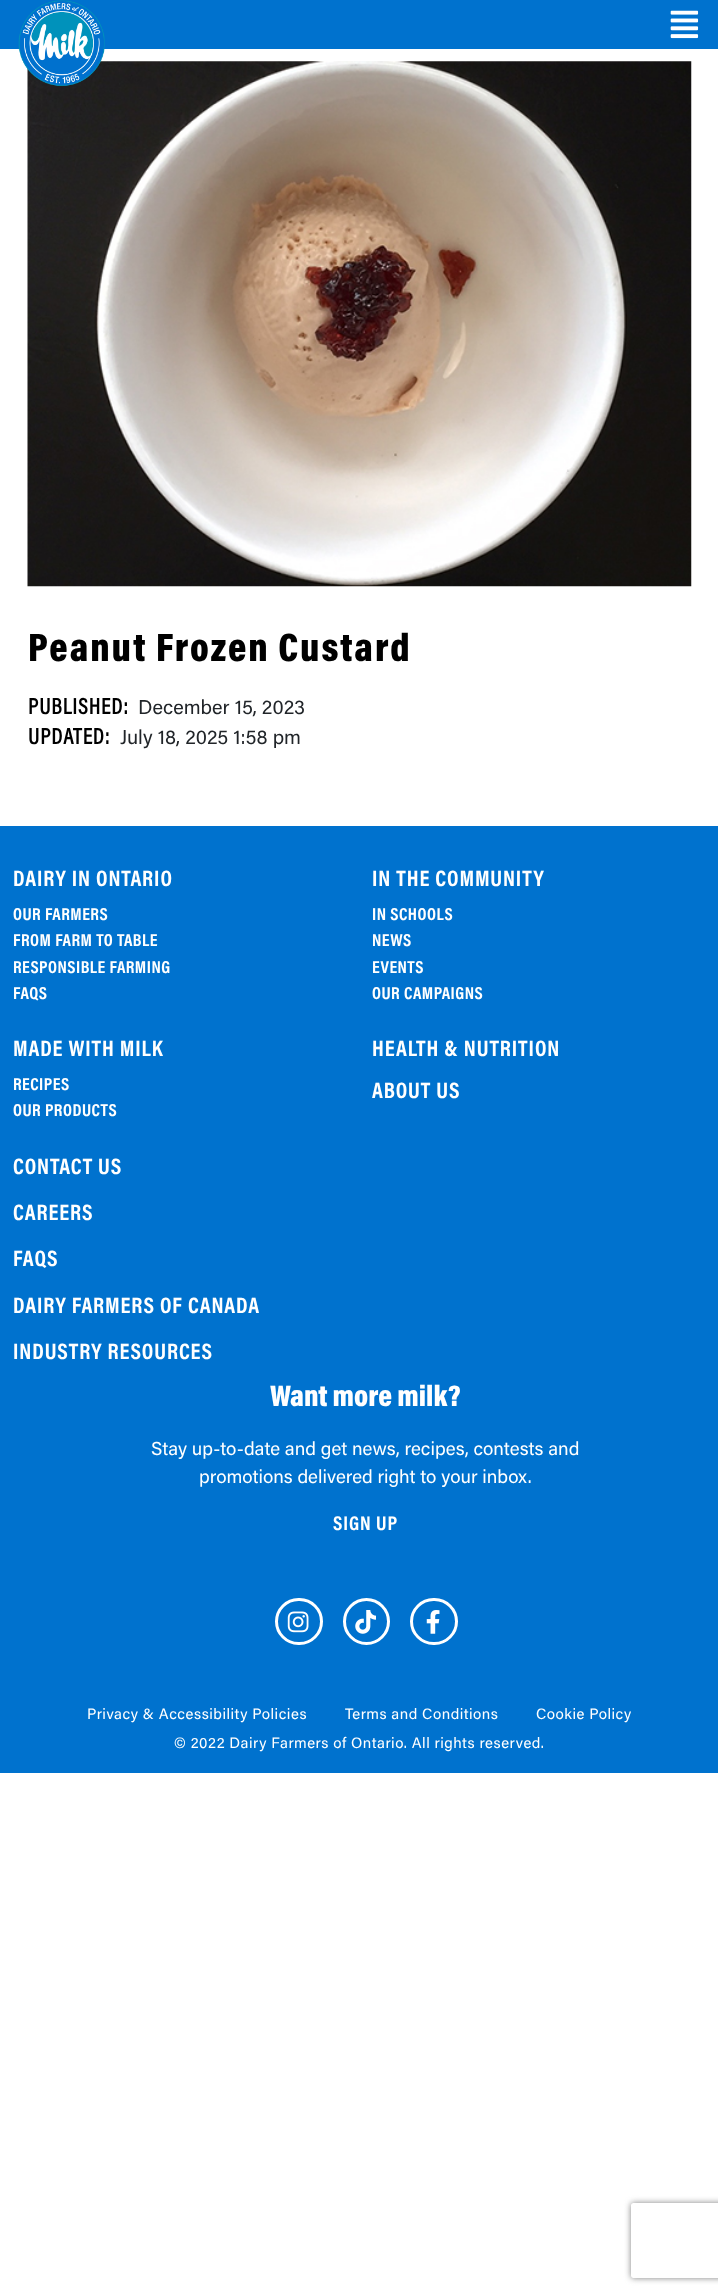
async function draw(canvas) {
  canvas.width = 718;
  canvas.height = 2294;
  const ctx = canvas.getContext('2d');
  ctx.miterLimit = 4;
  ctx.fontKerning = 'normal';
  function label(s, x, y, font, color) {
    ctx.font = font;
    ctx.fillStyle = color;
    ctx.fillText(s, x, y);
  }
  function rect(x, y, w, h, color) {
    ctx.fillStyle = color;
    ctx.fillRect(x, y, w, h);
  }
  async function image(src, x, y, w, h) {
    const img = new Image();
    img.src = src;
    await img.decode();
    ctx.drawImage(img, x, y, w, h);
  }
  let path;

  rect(0, 0, 718, 2294, '#fff');
  rect(0, 0, 718, 49, '#0072ce');
  await image('assets/img3.png', 27, 61, 665, 526);
  await image('assets/img1.png', 18, 0, 87, 86);
  await image('assets/img2.png', 670, 10, 29, 29);
  ctx.letterSpacing = '1.9px';
  label('Peanut Frozen Custard', 28, 661, '900 40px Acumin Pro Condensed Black', '#000');
  ctx.letterSpacing = '1px';
  label('PUBLISHED:', 28, 714, 'bold 22.5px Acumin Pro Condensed', '#000');
  ctx.letterSpacing = '0px';
  label('December 15, 2023', 138, 714, '20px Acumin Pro', '#212529');
  ctx.letterSpacing = '1px';
  label('UPDATED:', 28, 744, 'bold 22.5px Acumin Pro Condensed', '#000');
  ctx.letterSpacing = '0px';
  label('July 18, 2025 1:58 pm', 120, 744, '20px Acumin Pro', '#212529');
  rect(0, 826, 718, 947, '#0072ce');
  ctx.letterSpacing = '0.9px';
  label('DAIRY IN ONTARIO', 13, 886, 'bold 22.5px "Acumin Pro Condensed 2"', '#fff');
  ctx.letterSpacing = '0.5px';
  label('OUR FARMERS', 13, 920, 'bold 17.5px "Acumin Pro Condensed 2"', '#fff');
  label('FROM FARM TO TABLE', 13, 946, 'bold 17.5px "Acumin Pro Condensed 2"', '#fff');
  label('RESPONSIBLE FARMING', 13, 973, 'bold 17.5px "Acumin Pro Condensed 2"', '#fff');
  label('FAQS', 13, 999, 'bold 17.5px "Acumin Pro Condensed 2"', '#fff');
  ctx.letterSpacing = '0.9px';
  label('MADE WITH MILK', 13, 1056, 'bold 22.5px "Acumin Pro Condensed 2"', '#fff');
  ctx.letterSpacing = '0.5px';
  label('RECIPES', 13, 1090, 'bold 17.5px "Acumin Pro Condensed 2"', '#fff');
  label('OUR PRODUCTS', 13, 1116, 'bold 17.5px "Acumin Pro Condensed 2"', '#fff');
  ctx.letterSpacing = '0.9px';
  label('IN THE COMMUNITY', 372, 886, 'bold 22.5px "Acumin Pro Condensed 2"', '#fff');
  ctx.letterSpacing = '0.5px';
  label('IN SCHOOLS', 372, 920, 'bold 17.5px "Acumin Pro Condensed 2"', '#fff');
  label('NEWS', 372, 946, 'bold 17.5px "Acumin Pro Condensed 2"', '#fff');
  label('EVENTS', 372, 973, 'bold 17.5px "Acumin Pro Condensed 2"', '#fff');
  label('OUR CAMPAIGNS', 372, 999, 'bold 17.5px "Acumin Pro Condensed 2"', '#fff');
  ctx.letterSpacing = '0.9px';
  label('HEALTH & NUTRITION', 372, 1056, 'bold 22.5px "Acumin Pro Condensed 2"', '#fff');
  label('ABOUT US', 372, 1098, 'bold 22.5px "Acumin Pro Condensed 2"', '#fff');
  label('CONTACT US', 13, 1174, 'bold 22.5px "Acumin Pro Condensed 2"', '#fff');
  label('CAREERS', 13, 1220, 'bold 22.5px "Acumin Pro Condensed 2"', '#fff');
  label('FAQS', 13, 1266, 'bold 22.5px "Acumin Pro Condensed 2"', '#fff');
  label('DAIRY FARMERS OF CANADA', 13, 1313, 'bold 22.5px "Acumin Pro Condensed 2"', '#fff');
  label('INDUSTRY RESOURCES', 13, 1359, 'bold 22.5px "Acumin Pro Condensed 2"', '#fff');
  ctx.letterSpacing = '0px';
  label('Want more milk?', 270, 1406, '900 30px Acumin Pro Condensed Black', '#fff');
  label('Stay up-to-date and get news, recipes, contests and', 151, 1455, '18.75px Acumin Pro', '#fff');
  label('promotions delivered right to your inbox.', 199, 1483, '18.75px Acumin Pro', '#fff');
  ctx.letterSpacing = '0.9px';
  label('SIGN UP', 333, 1530, 'bold 20px "Acumin Pro Condensed 2"', '#fff');
  ctx.beginPath();
  ctx.roundRect(276.5, 1599.5, 45, 44, 22);
  ctx.strokeStyle = '#fff';
  ctx.lineWidth = 3;
  ctx.stroke();
  await image('assets/img4.png', 287, 1611, 22, 22);
  ctx.beginPath();
  ctx.arc(366.5, 1621.5, 22, 0, 2 * Math.PI);
  ctx.stroke();
  await image('assets/img5.png', 355, 1610, 21, 24);
  ctx.beginPath();
  ctx.roundRect(411.5, 1599.5, 45, 44, 22);
  ctx.stroke();
  await image('assets/img6.png', 426, 1610, 14, 24);
  ctx.letterSpacing = '0.5px';
  label('Privacy & Accessibility Policies', 87, 1719, '15px Acumin Pro', '#fff');
  label('Terms and Conditions', 345, 1719, '15px Acumin Pro', '#fff');
  label('Cookie Policy', 536, 1719, '15px Acumin Pro', '#fff');
  label('© 2022 Dairy Farmers of Ontario. All rights reserved.', 174, 1748, '15px Acumin Pro', '#fff');
  ctx.save();
  path = new Path2D('M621 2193H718V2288H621ZM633.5 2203H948.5C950 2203 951 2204 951 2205.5V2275.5C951 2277 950 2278 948.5 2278H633.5C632 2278 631 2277 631 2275.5V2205.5C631 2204 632 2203 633.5 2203Z');
  ctx.clip(path, 'evenodd');
  ctx.fillStyle = '#808080';
  ctx.filter = 'blur(3px)';
  ctx.beginPath();
  ctx.roundRect(631, 2203, 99, 75, 2.5);
  ctx.fill();
  ctx.filter = 'none';
  ctx.restore();
}

draw(document.querySelector('canvas'));
